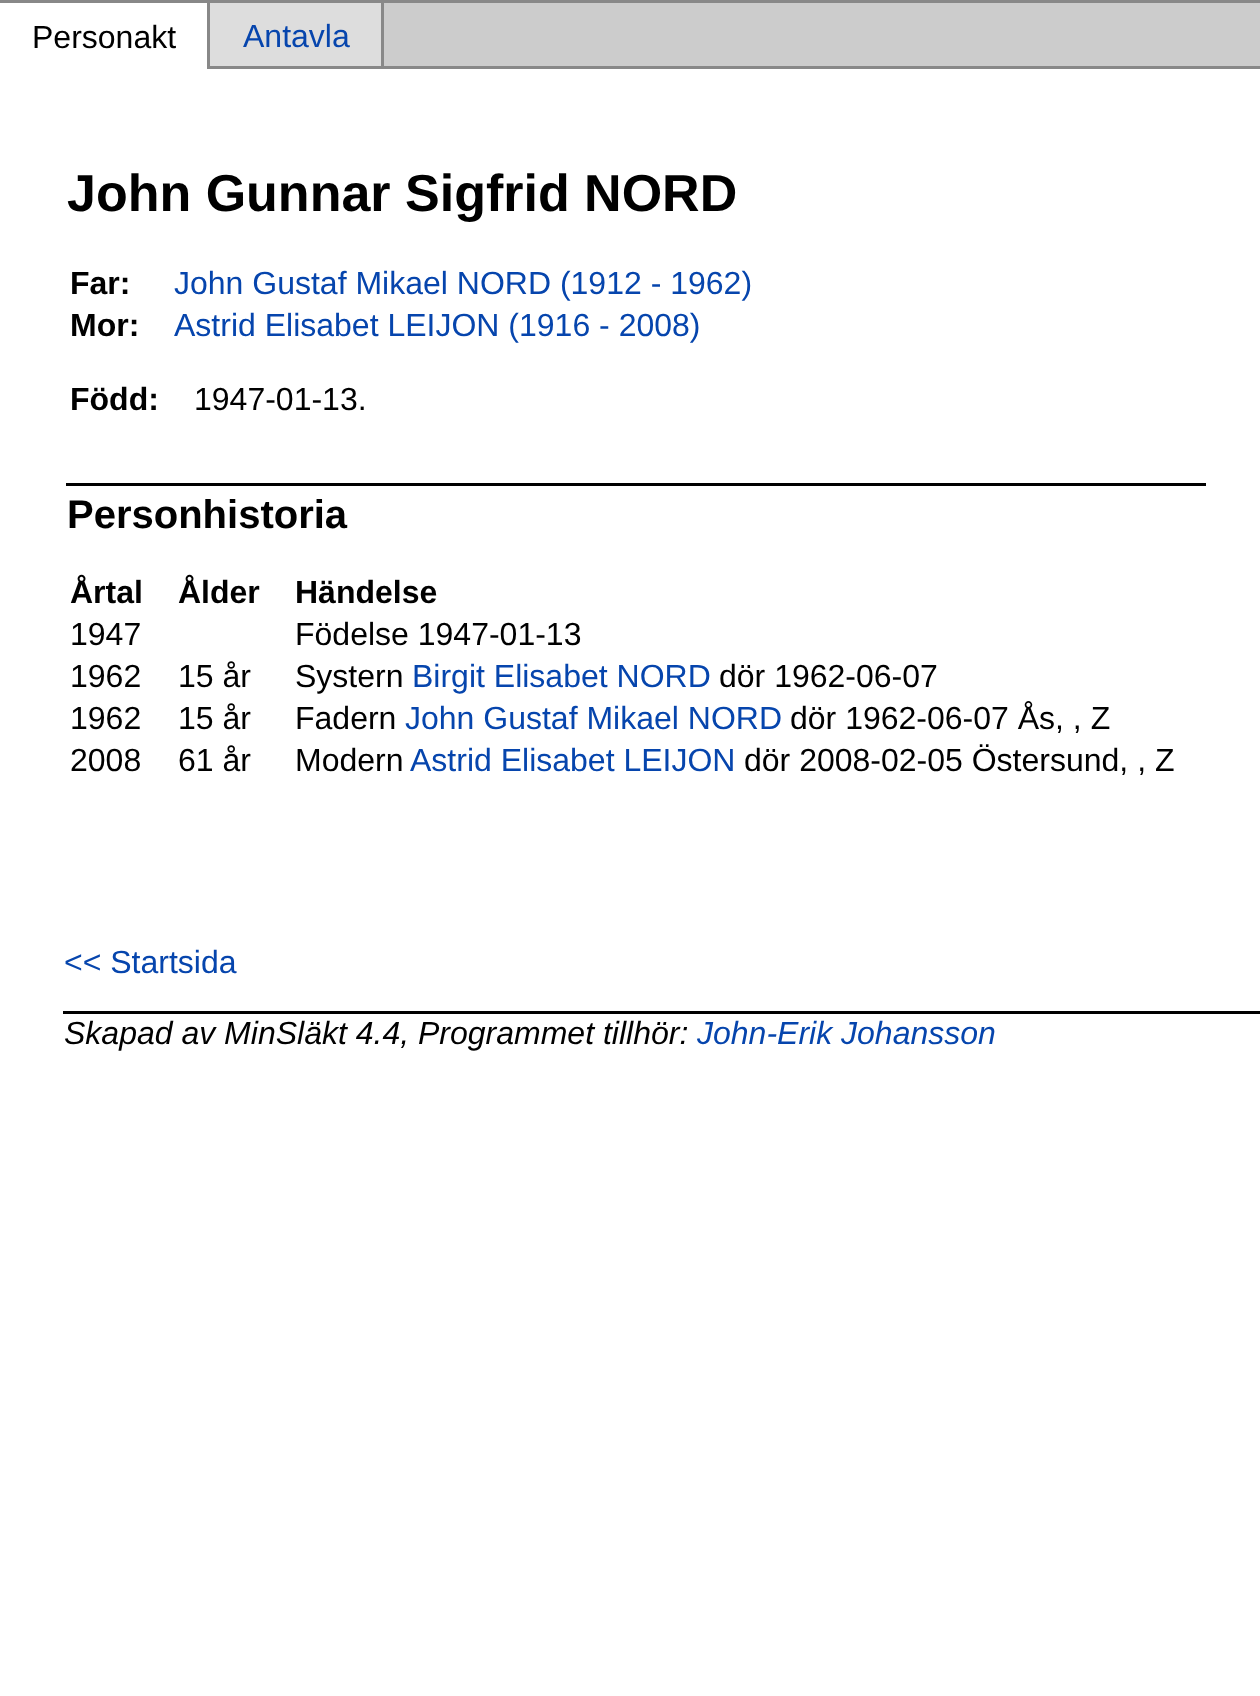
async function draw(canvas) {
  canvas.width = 1260;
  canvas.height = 1696;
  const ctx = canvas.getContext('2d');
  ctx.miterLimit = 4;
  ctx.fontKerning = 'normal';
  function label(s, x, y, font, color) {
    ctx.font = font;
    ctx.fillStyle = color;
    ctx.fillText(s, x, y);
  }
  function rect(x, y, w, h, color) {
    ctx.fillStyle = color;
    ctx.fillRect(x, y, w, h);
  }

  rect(0, 0, 1260, 1696, '#fff');
  rect(0, 0, 1260, 3, '#888');
  rect(207, 0, 3, 69, '#888');
  label('Personakt', 32, 48, '32px Liberation Sans', '#000');
  rect(210, 3, 171, 63, '#ddd');
  rect(381, 0, 3, 69, '#888');
  rect(210, 66, 1050, 3, '#888');
  label('Antavla', 243, 47, '32px Liberation Sans', '#0645ad');
  rect(384, 3, 876, 63, '#ccc');
  label('John Gunnar Sigfrid NORD', 67, 211, 'bold 52px Liberation Sans', '#000');
  label('Far:', 70, 294, 'bold 32px Liberation Sans', '#000');
  label('John Gustaf Mikael NORD (1912 - 1962)', 174, 294, '32px Liberation Sans', '#0645ad');
  label('Mor:', 70, 336, 'bold 32px Liberation Sans', '#000');
  label('Astrid Elisabet LEIJON (1916 - 2008)', 174, 336, '32px Liberation Sans', '#0645ad');
  label('Född:', 70, 410, 'bold 32px Liberation Sans', '#000');
  label('1947-01-13.', 194, 410, '32px Liberation Sans', '#000');
  rect(66, 483, 1140, 3, '#000');
  label('Personhistoria', 67, 528, 'bold 40px Liberation Sans', '#000');
  label('Årtal', 70, 603, 'bold 32px Liberation Sans', '#000');
  label('Ålder', 178, 603, 'bold 32px Liberation Sans', '#000');
  label('Händelse', 295, 603, 'bold 32px Liberation Sans', '#000');
  label('1947', 70, 645, '32px Liberation Sans', '#000');
  label('Födelse 1947-01-13', 295, 645, '32px Liberation Sans', '#000');
  label('1962', 70, 687, '32px Liberation Sans', '#000');
  label('15 år', 178, 687, '32px Liberation Sans', '#000');
  label('Systern', 295, 687, '32px Liberation Sans', '#000');
  label('Birgit Elisabet NORD', 412, 687, '32px Liberation Sans', '#0645ad');
  label('dör 1962-06-07', 719, 687, '32px Liberation Sans', '#000');
  label('1962', 70, 729, '32px Liberation Sans', '#000');
  label('15 år', 178, 729, '32px Liberation Sans', '#000');
  label('Fadern', 295, 729, '32px Liberation Sans', '#000');
  label('John Gustaf Mikael NORD', 405, 729, '32px Liberation Sans', '#0645ad');
  label('dör 1962-06-07 Ås, , Z', 790, 729, '32px Liberation Sans', '#000');
  label('2008', 70, 771, '32px Liberation Sans', '#000');
  label('61 år', 178, 771, '32px Liberation Sans', '#000');
  label('Modern', 295, 771, '32px Liberation Sans', '#000');
  label('Astrid Elisabet LEIJON', 410, 771, '32px Liberation Sans', '#0645ad');
  label('dör 2008-02-05 Östersund, , Z', 744, 771, '32px Liberation Sans', '#000');
  label('<< Startsida', 64, 973, '32px Liberation Sans', '#0645ad');
  rect(63, 1011, 1197, 3, '#000');
  label('Skapad av MinSläkt 4.4, Programmet tillhör:', 64, 1044, 'italic 32px Liberation Sans', '#000');
  label('John-Erik Johansson', 697, 1044, 'italic 32px Liberation Sans', '#0645ad');
}

draw(document.querySelector('canvas'));
